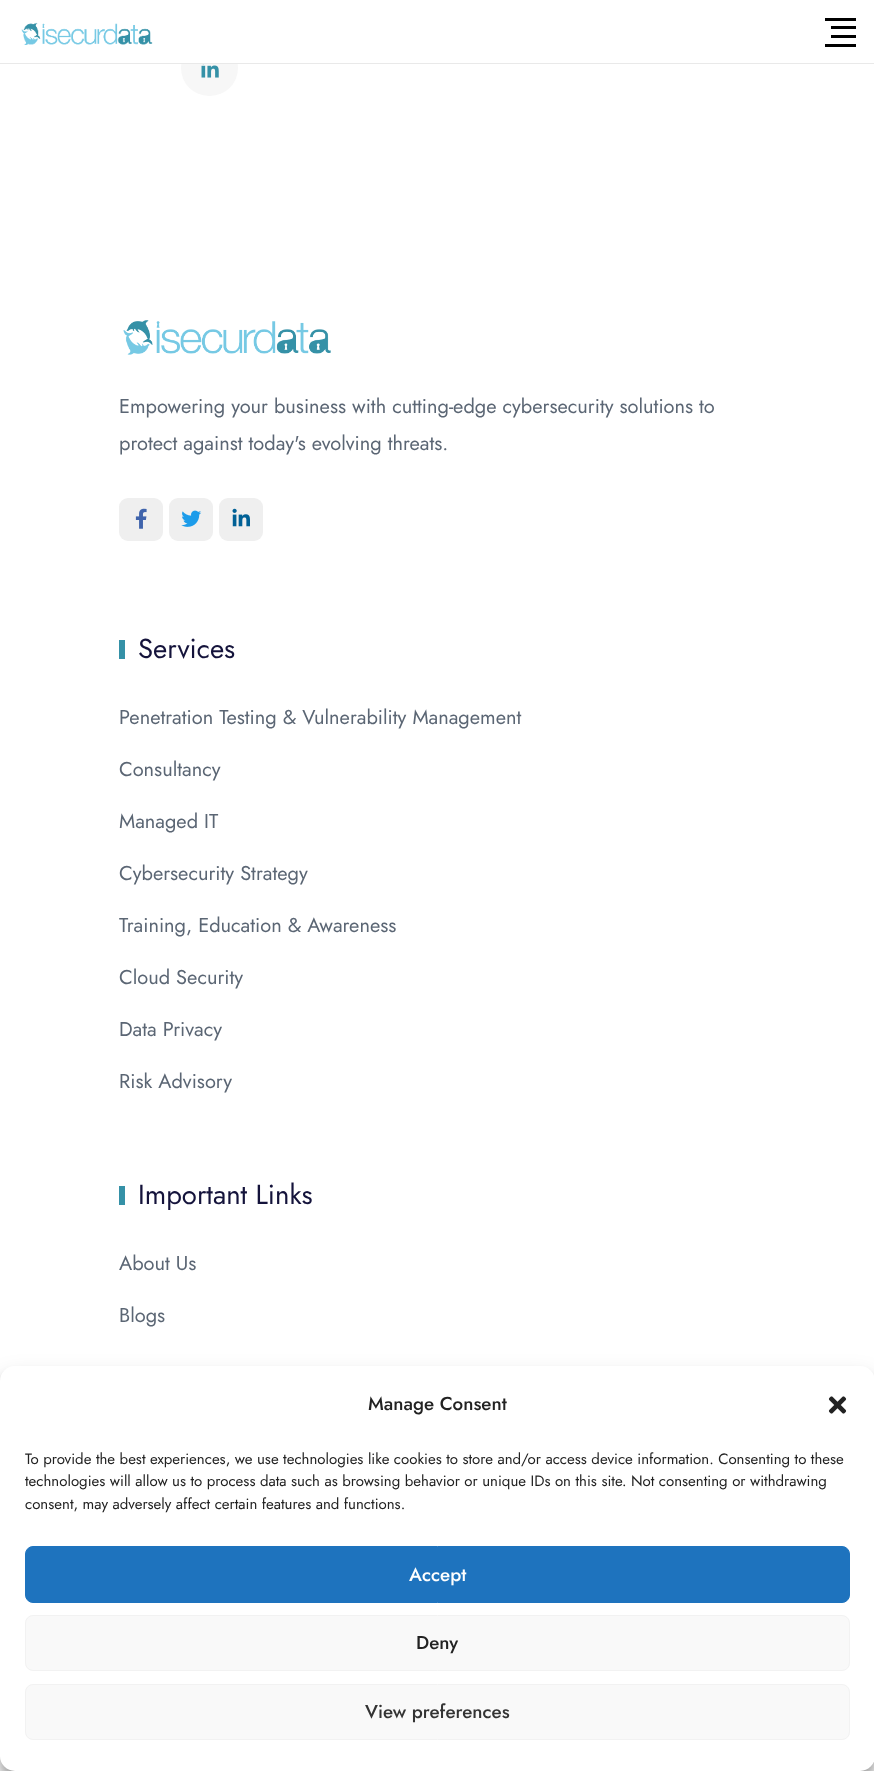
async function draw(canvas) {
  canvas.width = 874;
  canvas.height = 1771;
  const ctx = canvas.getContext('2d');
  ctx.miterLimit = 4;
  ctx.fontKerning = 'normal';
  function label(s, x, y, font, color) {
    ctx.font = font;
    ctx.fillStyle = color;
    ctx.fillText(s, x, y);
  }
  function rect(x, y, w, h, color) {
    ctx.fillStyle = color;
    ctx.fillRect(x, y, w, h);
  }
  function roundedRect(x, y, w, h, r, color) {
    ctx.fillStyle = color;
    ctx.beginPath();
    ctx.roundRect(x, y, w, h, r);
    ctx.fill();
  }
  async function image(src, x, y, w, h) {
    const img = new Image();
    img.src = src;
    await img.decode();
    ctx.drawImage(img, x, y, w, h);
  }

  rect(0, 0, 874, 1771, '#fff');
  roundedRect(181, 40, 57, 56, 28, '#f7f7f7');
  rect(181, 40, 57, 23, '#fff');
  rect(0, 63, 874, 1, '#e9e9e9');
  await image('assets/img1.png', 21, 22, 132, 23);
  rect(825, 18, 31, 3, '#000');
  rect(831, 26, 25, 3, '#000');
  rect(831, 35, 25, 3, '#000');
  rect(825, 44, 31, 3, '#000');
  await image('assets/img2.png', 201, 64, 18, 14);
  await image('assets/img3.png', 123, 320, 208, 35);
  label('Empowering your business with cutting-edge cybersecurity solutions to', 119, 413, '20px Jost', '#5b6674');
  label('protect against today\'s evolving threats.', 119, 450, '20px Jost', '#5b6674');
  roundedRect(119, 498, 44, 43, 9, '#efefef');
  await image('assets/img4.png', 135, 508, 12, 21);
  roundedRect(169, 498, 44, 43, 9, '#efefef');
  await image('assets/img5.png', 181, 510, 21, 17);
  roundedRect(219, 498, 44, 43, 9, '#efefef');
  await image('assets/img6.png', 232, 508, 18, 19);
  rect(119, 640, 6, 19, '#3591a7');
  label('Services', 138, 658, '27.5px Jost', '#14133b');
  label('Penetration Testing & Vulnerability Management', 119, 724, '20px Jost', '#5b6674');
  label('Consultancy', 119, 776, '20px Jost', '#5b6674');
  label('Managed IT', 119, 828, '20px Jost', '#5b6674');
  label('Cybersecurity Strategy', 119, 880, '20px Jost', '#5b6674');
  label('Training, Education & Awareness', 119, 932, '20px Jost', '#5b6674');
  label('Cloud Security', 119, 984, '20px Jost', '#5b6674');
  label('Data Privacy', 119, 1036, '20px Jost', '#5b6674');
  label('Risk Advisory', 119, 1088, '20px Jost', '#5b6674');
  rect(119, 1186, 6, 19, '#3591a7');
  label('Important Links', 138, 1204, '27.5px Jost', '#14133b');
  label('About Us', 119, 1270, '20px Jost', '#5b6674');
  label('Blogs', 119, 1322, '20px Jost', '#5b6674');
  ctx.fillStyle = '#0000003b';
  ctx.filter = 'blur(4px)';
  ctx.beginPath();
  ctx.roundRect(0, 1374, 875, 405, 15);
  ctx.fill();
  ctx.filter = 'none';
  ctx.fillStyle = '#00000030';
  ctx.filter = 'blur(12.5px)';
  ctx.beginPath();
  ctx.roundRect(0, 1379, 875, 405, 15);
  ctx.fill();
  ctx.filter = 'none';
  roundedRect(0, 1366, 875, 405, 15, '#fff');
  label('Manage Consent', 368, 1410, '500 18.75px Jost', '#222');
  await image('assets/img7.png', 828, 1396, 19, 18);
  label('To provide the best experiences, we use technologies like cookies to store and/or access device information. Consenting to these', 25, 1464, '15px Jost', '#222');
  label('technologies will allow us to process data such as browsing behavior or unique IDs on this site. Not consenting or withdrawing', 25, 1486, '15px Jost', '#222');
  label('consent, may adversely affect certain features and functions.', 25, 1509, '15px Jost', '#222');
  ctx.fillStyle = '#1e73be';
  ctx.beginPath();
  ctx.roundRect(25.5, 1546.5, 824, 56, 7.5);
  ctx.fill();
  ctx.strokeStyle = '#1e73be';
  ctx.stroke();
  label('Accept', 409, 1581, '500 18.75px Jost', '#fff');
  ctx.fillStyle = '#f9f9f9';
  ctx.beginPath();
  ctx.roundRect(25.5, 1615.5, 824, 55, 7.5);
  ctx.fill();
  ctx.strokeStyle = '#f2f2f2';
  ctx.stroke();
  label('Deny', 416, 1649, '500 18.75px Jost', '#222');
  ctx.fillStyle = '#f9f9f9';
  ctx.beginPath();
  ctx.roundRect(25.5, 1684.5, 824, 55, 7.5);
  ctx.fill();
  ctx.stroke();
  label('View preferences', 365, 1718, '500 18.75px Jost', '#333');
}

draw(document.querySelector('canvas'));
